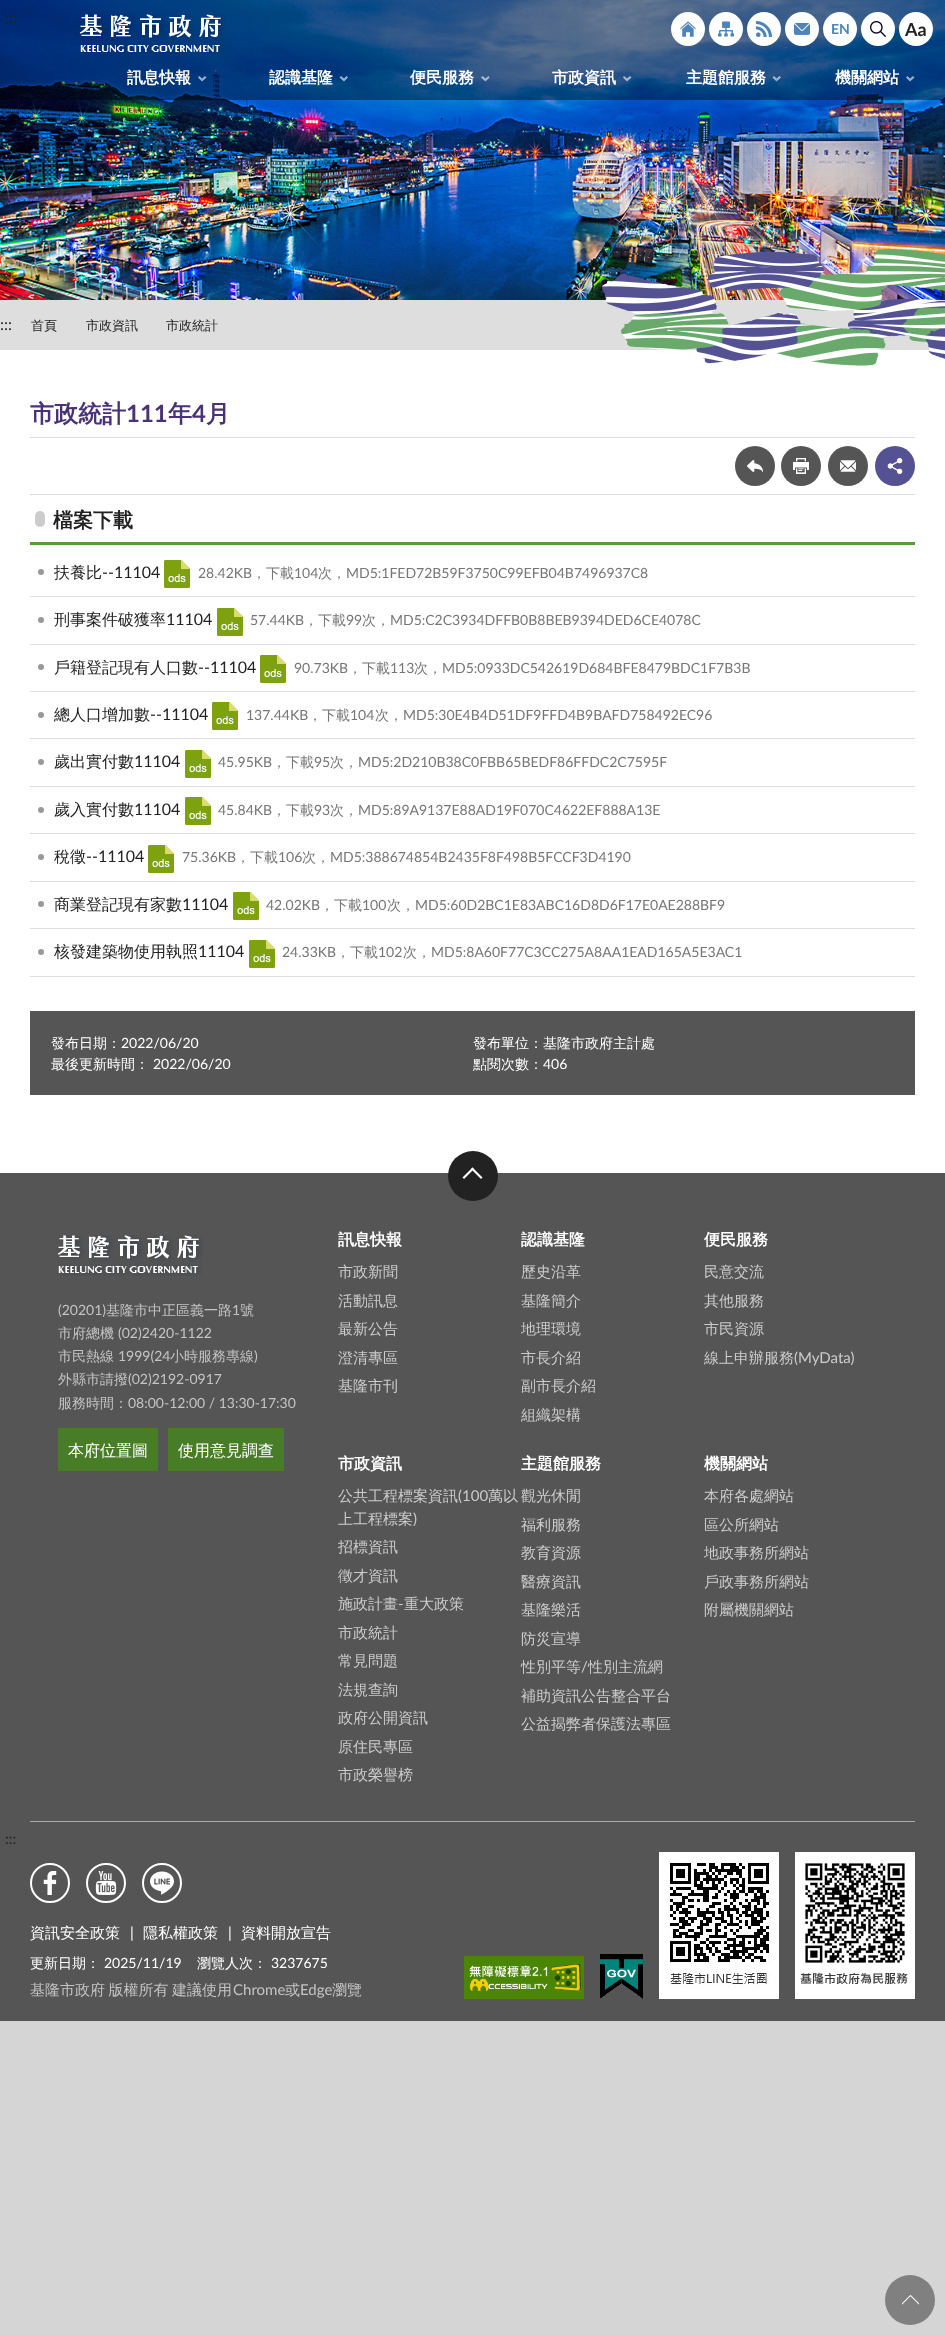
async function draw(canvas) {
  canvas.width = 945;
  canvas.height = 2335;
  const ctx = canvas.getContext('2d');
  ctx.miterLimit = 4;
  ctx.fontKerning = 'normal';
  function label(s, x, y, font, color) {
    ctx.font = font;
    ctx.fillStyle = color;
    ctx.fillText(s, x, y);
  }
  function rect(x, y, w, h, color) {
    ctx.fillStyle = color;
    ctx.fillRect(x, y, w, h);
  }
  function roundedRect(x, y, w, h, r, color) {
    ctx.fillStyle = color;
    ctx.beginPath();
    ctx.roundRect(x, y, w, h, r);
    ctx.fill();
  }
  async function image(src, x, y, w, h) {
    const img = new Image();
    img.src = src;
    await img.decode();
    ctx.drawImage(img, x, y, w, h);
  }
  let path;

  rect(0, 0, 945, 2335, '#d6d5d6');
  rect(0, 350, 945, 823, '#fff');
  await image('assets/img1.png', 0, 0, 945, 300);
  rect(0, 300, 945, 50, '#dedede');
  await image('assets/img2.png', 602, 249, 343, 117);
  rect(0, 0, 945, 100, '#00000066');
  label(':::', 5, 23, '16px Lato', '#222');
  await image('assets/img3.png', 79, 14, 146, 41);
  ctx.fillStyle = '#fff';
  ctx.beginPath();
  ctx.arc(878, 29, 17, 0, 2 * Math.PI);
  ctx.fill();
  await image('assets/img4.png', 870, 21, 16, 16);
  ctx.beginPath();
  ctx.arc(688, 29, 17, 0, 2 * Math.PI);
  ctx.fill();
  await image('assets/img5.png', 680, 21, 16, 16);
  ctx.beginPath();
  ctx.arc(726, 29, 17, 0, 2 * Math.PI);
  ctx.fill();
  await image('assets/img6.png', 718, 21, 16, 16);
  ctx.beginPath();
  ctx.arc(764, 29, 17, 0, 2 * Math.PI);
  ctx.fill();
  await image('assets/img7.png', 756, 21, 16, 16);
  ctx.beginPath();
  ctx.arc(802, 29, 17, 0, 2 * Math.PI);
  ctx.fill();
  await image('assets/img8.png', 794, 22, 16, 13);
  ctx.beginPath();
  ctx.arc(840, 29, 17, 0, 2 * Math.PI);
  ctx.fill();
  label('EN', 831, 34, 'bold 14px Lato', '#4d84bb');
  ctx.fillStyle = '#fff';
  ctx.beginPath();
  ctx.arc(916, 29, 17, 0, 2 * Math.PI);
  ctx.fill();
  label('Aa', 905, 36, 'bold 18px Lato', '#222');
  label('訊息快報', 127, 83, 'bold 16px WenQuanYi Zen Hei', '#fff');
  ctx.fillStyle = '#99b0cb';
  path = new Path2D('M206.5 77.5L202 81.5V78.5L205 76Z');
  ctx.fill(path);
  ctx.fillStyle = '#ffffff99';
  path = new Path2D('M202 81.5L198 77.5L199.5 76L202 78.5Z');
  ctx.fill(path);
  label('認識基隆', 269, 83, 'bold 16px WenQuanYi Zen Hei', '#fff');
  ctx.fillStyle = '#ffffff99';
  path = new Path2D('M348 77.5L344 81.5V78.5L346.5 76ZM344 81.5L339.5 77.5L341 76L344 78.5Z');
  ctx.fill(path);
  label('便民服務', 410, 83, 'bold 16px WenQuanYi Zen Hei', '#fff');
  ctx.fillStyle = '#ffffff99';
  path = new Path2D('M489.5 77.5L485.5 81.5V78.5L488.5 76Z');
  ctx.fill(path);
  path = new Path2D('M485.5 81.5L481 77.5L482.5 76L485.5 78.5Z');
  ctx.fill(path);
  label('市政資訊', 552, 83, 'bold 16px WenQuanYi Zen Hei', '#fff');
  ctx.fillStyle = '#ffffff99';
  path = new Path2D('M631.5 77.5L627 81.5V78.5L630 76ZM627 81.5L623 77.5L624 76L627 78.5Z');
  ctx.fill(path);
  label('主題館服務', 686, 83, 'bold 16px WenQuanYi Zen Hei', '#fff');
  ctx.fillStyle = '#ffffff99';
  path = new Path2D('M781 77.5L776.5 81.5V78.5L779.5 76Z');
  ctx.fill(path);
  path = new Path2D('M776.5 81.5L772.5 77.5L774 76L776.5 78.5Z');
  ctx.fill(path);
  label('機關網站', 835, 83, 'bold 16px WenQuanYi Zen Hei', '#fff');
  ctx.fillStyle = '#ffffff99';
  path = new Path2D('M914.5 77.5L910 81.5V78.5L913 76ZM910 81.5L906 77.5L907.5 76L910 78.5Z');
  ctx.fill(path);
  label(':::', 0, 330, '16px Lato', '#222');
  label('首頁', 31, 330, '500 13px WenQuanYi Zen Hei', '#222');
  label('市政資訊', 86, 330, '500 13px WenQuanYi Zen Hei', '#222');
  label('市政統計', 166, 330, '500 13px WenQuanYi Zen Hei', '#222');
  label('市政統計', 30, 422, 'bold 24px WenQuanYi Zen Hei', '#4a3278');
  label('111', 126, 422, 'bold 24px Lato', '#4a3278');
  label('年', 168, 422, 'bold 24px WenQuanYi Zen Hei', '#4a3278');
  label('4', 192, 422, 'bold 24px Lato', '#4a3278');
  label('月', 206, 422, 'bold 24px WenQuanYi Zen Hei', '#4a3278');
  rect(30, 437, 885, 1, '#ddd');
  rect(30, 494, 885, 1, '#ddd');
  ctx.fillStyle = '#555';
  ctx.beginPath();
  ctx.arc(755, 466, 20, 0, 2 * Math.PI);
  ctx.fill();
  await image('assets/img9.png', 747, 460, 16, 12);
  ctx.beginPath();
  ctx.arc(801, 466, 20, 0, 2 * Math.PI);
  ctx.fill();
  await image('assets/img10.png', 793, 458, 16, 16);
  ctx.beginPath();
  ctx.arc(848, 466, 20, 0, 2 * Math.PI);
  ctx.fill();
  await image('assets/img11.png', 840, 460, 16, 12);
  ctx.fillStyle = '#545292';
  ctx.beginPath();
  ctx.arc(895, 466, 20, 0, 2 * Math.PI);
  ctx.fill();
  await image('assets/img12.png', 887, 458, 16, 16);
  rect(30, 542, 885, 3, '#559d38');
  roundedRect(35, 511, 10, 16, 5, '#ccc');
  label('檔案下載', 53, 527, 'bold 20px WenQuanYi Zen Hei', '#222');
  rect(30, 596, 885, 1, '#ddd');
  ctx.fillStyle = '#999';
  ctx.beginPath();
  ctx.arc(41, 572, 3, 0, 2 * Math.PI);
  ctx.fill();
  label('扶養比', 54, 578, '500 16px WenQuanYi Zen Hei', '#222');
  label('--11104', 102, 578, '16px Lato', '#222');
  await image('assets/img13.png', 164, 560, 26, 28);
  label('28.42KB', 198, 578, '14px Lato', '#767676');
  label('，下載', 252, 578, '500 14px WenQuanYi Zen Hei', '#767676');
  label('104', 294, 578, '14px Lato', '#767676');
  label('次，', 318, 578, '500 14px WenQuanYi Zen Hei', '#767676');
  label('MD5:1FED72B59F3750C99EFB04B7496937C8', 346, 578, '14px Lato', '#767676');
  rect(30, 644, 885, 1, '#ddd');
  ctx.fillStyle = '#999';
  ctx.beginPath();
  ctx.arc(41, 620, 3, 0, 2 * Math.PI);
  ctx.fill();
  label('刑事案件破獲率', 54, 625, '500 16px WenQuanYi Zen Hei', '#222');
  label('11104', 166, 625, '16px Lato', '#222');
  await image('assets/img13.png', 217, 608, 26, 28);
  label('57.44KB', 250, 625, '14px Lato', '#767676');
  label('，下載', 304, 625, '500 14px WenQuanYi Zen Hei', '#767676');
  label('99', 346, 625, '14px Lato', '#767676');
  label('次，', 362, 625, '500 14px WenQuanYi Zen Hei', '#767676');
  label('MD5:C2C3934DFFB0B8BEB9394DED6CE4078C', 390, 625, '14px Lato', '#767676');
  rect(30, 691, 885, 1, '#ddd');
  ctx.fillStyle = '#999';
  ctx.beginPath();
  ctx.arc(41, 667, 3, 0, 2 * Math.PI);
  ctx.fill();
  label('戶籍登記現有人口數', 54, 673, '500 16px WenQuanYi Zen Hei', '#222');
  label('--11104', 198, 673, '16px Lato', '#222');
  await image('assets/img13.png', 260, 655, 26, 28);
  label('90.73KB', 294, 673, '14px Lato', '#767676');
  label('，下載', 348, 673, '500 14px WenQuanYi Zen Hei', '#767676');
  label('113', 390, 673, '14px Lato', '#767676');
  label('次，', 414, 673, '500 14px WenQuanYi Zen Hei', '#767676');
  label('MD5:0933DC542619D684BFE8479BDC1F7B3B', 442, 673, '14px Lato', '#767676');
  rect(30, 738, 885, 1, '#ddd');
  ctx.fillStyle = '#999';
  ctx.beginPath();
  ctx.arc(41, 715, 3, 0, 2 * Math.PI);
  ctx.fill();
  label('總人口增加數', 54, 720, '500 16px WenQuanYi Zen Hei', '#222');
  label('--11104', 150, 720, '16px Lato', '#222');
  await image('assets/img13.png', 212, 702, 26, 28);
  label('137.44KB', 246, 720, '14px Lato', '#767676');
  label('，下載', 308, 720, '500 14px WenQuanYi Zen Hei', '#767676');
  label('104', 350, 720, '14px Lato', '#767676');
  label('次，', 375, 720, '500 14px WenQuanYi Zen Hei', '#767676');
  label('MD5:30E4B4D51DF9FFD4B9BAFD758492EC96', 403, 720, '14px Lato', '#767676');
  rect(30, 786, 885, 1, '#ddd');
  ctx.fillStyle = '#999';
  ctx.beginPath();
  ctx.arc(41, 762, 3, 0, 2 * Math.PI);
  ctx.fill();
  label('歲出實付數', 54, 767, '500 16px WenQuanYi Zen Hei', '#222');
  label('11104', 134, 767, '16px Lato', '#222');
  await image('assets/img13.png', 185, 750, 26, 28);
  label('45.95KB', 218, 767, '14px Lato', '#767676');
  label('，下載', 272, 767, '500 14px WenQuanYi Zen Hei', '#767676');
  label('95', 314, 767, '14px Lato', '#767676');
  label('次，', 330, 767, '500 14px WenQuanYi Zen Hei', '#767676');
  label('MD5:2D210B38C0FBB65BEDF86FFDC2C7595F', 358, 767, '14px Lato', '#767676');
  rect(30, 833, 885, 1, '#ddd');
  ctx.fillStyle = '#999';
  ctx.beginPath();
  ctx.arc(41, 810, 3, 0, 2 * Math.PI);
  ctx.fill();
  label('歲入實付數', 54, 815, '500 16px WenQuanYi Zen Hei', '#222');
  label('11104', 134, 815, '16px Lato', '#222');
  await image('assets/img13.png', 185, 797, 26, 28);
  label('45.84KB', 218, 815, '14px Lato', '#767676');
  label('，下載', 272, 815, '500 14px WenQuanYi Zen Hei', '#767676');
  label('93', 314, 815, '14px Lato', '#767676');
  label('次，', 330, 815, '500 14px WenQuanYi Zen Hei', '#767676');
  label('MD5:89A9137E88AD19F070C4622EF888A13E', 358, 815, '14px Lato', '#767676');
  rect(30, 881, 885, 1, '#ddd');
  ctx.fillStyle = '#999';
  ctx.beginPath();
  ctx.arc(41, 857, 3, 0, 2 * Math.PI);
  ctx.fill();
  label('稅徵', 54, 862, '500 16px WenQuanYi Zen Hei', '#222');
  label('--11104', 86, 862, '16px Lato', '#222');
  await image('assets/img13.png', 148, 845, 26, 28);
  label('75.36KB', 182, 862, '14px Lato', '#767676');
  label('，下載', 236, 862, '500 14px WenQuanYi Zen Hei', '#767676');
  label('106', 278, 862, '14px Lato', '#767676');
  label('次，', 302, 862, '500 14px WenQuanYi Zen Hei', '#767676');
  label('MD5:388674854B2435F8F498B5FCCF3D4190', 330, 862, '14px Lato', '#767676');
  rect(30, 928, 885, 1, '#ddd');
  ctx.fillStyle = '#999';
  ctx.beginPath();
  ctx.arc(41, 904, 3, 0, 2 * Math.PI);
  ctx.fill();
  label('商業登記現有家數', 54, 910, '500 16px WenQuanYi Zen Hei', '#222');
  label('11104', 182, 910, '16px Lato', '#222');
  await image('assets/img13.png', 233, 892, 26, 28);
  label('42.02KB', 266, 910, '14px Lato', '#767676');
  label('，下載', 320, 910, '500 14px WenQuanYi Zen Hei', '#767676');
  label('100', 362, 910, '14px Lato', '#767676');
  label('次，', 387, 910, '500 14px WenQuanYi Zen Hei', '#767676');
  label('MD5:60D2BC1E83ABC16D8D6F17E0AE288BF9', 415, 910, '14px Lato', '#767676');
  rect(30, 976, 885, 1, '#ddd');
  ctx.fillStyle = '#999';
  ctx.beginPath();
  ctx.arc(41, 952, 3, 0, 2 * Math.PI);
  ctx.fill();
  label('核發建築物使用執照', 54, 957, '500 16px WenQuanYi Zen Hei', '#222');
  label('11104', 198, 957, '16px Lato', '#222');
  await image('assets/img13.png', 249, 940, 26, 28);
  label('24.33KB', 282, 957, '14px Lato', '#767676');
  label('，下載', 336, 957, '500 14px WenQuanYi Zen Hei', '#767676');
  label('102', 378, 957, '14px Lato', '#767676');
  label('次，', 403, 957, '500 14px WenQuanYi Zen Hei', '#767676');
  label('MD5:8A60F77C3CC275A8AA1EAD165A5E3AC1', 431, 957, '14px Lato', '#767676');
  rect(30, 1011, 885, 84, '#555');
  label('發布日期：', 51, 1048, '500 14px WenQuanYi Zen Hei', '#fff');
  label('2022/06/20', 121, 1048, '14px Lato', '#fff');
  label('發布單位：基隆市政府主計處', 473, 1048, '500 14px WenQuanYi Zen Hei', '#fff');
  label('最後更新時間：', 51, 1069, '500 14px WenQuanYi Zen Hei', '#fff');
  label('2022/06/20', 153, 1069, '14px Lato', '#fff');
  label('點閱次數：', 473, 1069, '500 14px WenQuanYi Zen Hei', '#fff');
  label('406', 543, 1069, '14px Lato', '#fff');
  rect(0, 1173, 945, 848, '#555');
  ctx.fillStyle = '#222';
  ctx.beginPath();
  ctx.arc(473, 1176, 25, 0, 2 * Math.PI);
  ctx.fill();
  ctx.fillStyle = '#fff';
  path = new Path2D('M462.5 1177.5L472.5 1167.5L474 1169L464 1179Z');
  ctx.fill(path);
  path = new Path2D('M471 1169L472.5 1167.5L482.5 1177.5L481 1179Z');
  ctx.fill(path);
  await image('assets/img14.png', 57, 1235, 146, 41);
  label('(20201)', 58, 1315, '14px Lato', '#c4c4c4');
  label('基隆市中正區義一路', 106, 1315, '500 14px WenQuanYi Zen Hei', '#c4c4c4');
  label('1', 232, 1315, '14px Lato', '#c4c4c4');
  label('號', 240, 1315, '500 14px WenQuanYi Zen Hei', '#c4c4c4');
  label('市府總機', 58, 1338, '500 14px WenQuanYi Zen Hei', '#c4c4c4');
  label('(02)2420-1122', 118, 1338, '14px Lato', '#c4c4c4');
  label('市民熱線', 58, 1361, '500 14px WenQuanYi Zen Hei', '#c4c4c4');
  label('1999(24', 118, 1361, '14px Lato', '#c4c4c4');
  label('小時服務專線', 170, 1361, '500 14px WenQuanYi Zen Hei', '#c4c4c4');
  label(')', 254, 1361, '14px Lato', '#c4c4c4');
  label('外縣市請撥', 58, 1384, '500 14px WenQuanYi Zen Hei', '#c4c4c4');
  label('(02)2192-0917', 128, 1384, '14px Lato', '#c4c4c4');
  label('服務時間：', 58, 1408, '500 14px WenQuanYi Zen Hei', '#c4c4c4');
  label('08:00-12:00 / 13:30-17:30', 128, 1408, '14px Lato', '#c4c4c4');
  rect(58, 1428, 100, 43, '#487d27');
  label('本府位置圖', 68, 1456, '500 16px WenQuanYi Zen Hei', '#fff');
  rect(168, 1428, 116, 43, '#487d27');
  label('使用意見調查', 178, 1456, '500 16px WenQuanYi Zen Hei', '#fff');
  label('訊息快報', 338, 1245, 'bold 16px WenQuanYi Zen Hei', '#fff');
  label('市政新聞', 338, 1277, '500 15px WenQuanYi Zen Hei', '#ccc');
  label('活動訊息', 338, 1306, '500 15px WenQuanYi Zen Hei', '#ccc');
  label('最新公告', 338, 1334, '500 15px WenQuanYi Zen Hei', '#ccc');
  label('澄清專區', 338, 1363, '500 15px WenQuanYi Zen Hei', '#ccc');
  label('基隆市刊', 338, 1391, '500 15px WenQuanYi Zen Hei', '#ccc');
  label('認識基隆', 521, 1245, 'bold 16px WenQuanYi Zen Hei', '#fff');
  label('歷史沿革', 521, 1277, '500 15px WenQuanYi Zen Hei', '#ccc');
  label('基隆簡介', 521, 1306, '500 15px WenQuanYi Zen Hei', '#ccc');
  label('地理環境', 521, 1334, '500 15px WenQuanYi Zen Hei', '#ccc');
  label('市長介紹', 521, 1363, '500 15px WenQuanYi Zen Hei', '#ccc');
  label('副市長介紹', 521, 1391, '500 15px WenQuanYi Zen Hei', '#ccc');
  label('組織架構', 521, 1420, '500 15px WenQuanYi Zen Hei', '#ccc');
  label('便民服務', 704, 1245, 'bold 16px WenQuanYi Zen Hei', '#fff');
  label('民意交流', 704, 1277, '500 15px WenQuanYi Zen Hei', '#ccc');
  label('其他服務', 704, 1306, '500 15px WenQuanYi Zen Hei', '#ccc');
  label('市民資源', 704, 1334, '500 15px WenQuanYi Zen Hei', '#ccc');
  label('線上申辦服務', 704, 1363, '500 15px WenQuanYi Zen Hei', '#ccc');
  label('(MyData)', 794, 1363, '15px Lato', '#ccc');
  label('市政資訊', 338, 1469, 'bold 16px WenQuanYi Zen Hei', '#fff');
  label('公共工程標案資訊', 338, 1501, '500 15px WenQuanYi Zen Hei', '#ccc');
  label('(100', 458, 1501, '15px Lato', '#ccc');
  label('萬以', 488, 1501, '500 15px WenQuanYi Zen Hei', '#ccc');
  label('上工程標案', 338, 1524, '500 15px WenQuanYi Zen Hei', '#ccc');
  label(')', 413, 1524, '15px Lato', '#ccc');
  label('招標資訊', 338, 1552, '500 15px WenQuanYi Zen Hei', '#ccc');
  label('徵才資訊', 338, 1581, '500 15px WenQuanYi Zen Hei', '#ccc');
  label('施政計畫', 338, 1609, '500 15px WenQuanYi Zen Hei', '#ccc');
  label('-', 398, 1609, '15px Lato', '#ccc');
  label('重大政策', 404, 1609, '500 15px WenQuanYi Zen Hei', '#ccc');
  label('市政統計', 338, 1638, '500 15px WenQuanYi Zen Hei', '#ccc');
  label('常見問題', 338, 1666, '500 15px WenQuanYi Zen Hei', '#ccc');
  label('法規查詢', 338, 1695, '500 15px WenQuanYi Zen Hei', '#ccc');
  label('政府公開資訊', 338, 1723, '500 15px WenQuanYi Zen Hei', '#ccc');
  label('原住民專區', 338, 1752, '500 15px WenQuanYi Zen Hei', '#ccc');
  label('市政榮譽榜', 338, 1780, '500 15px WenQuanYi Zen Hei', '#ccc');
  label('主題館服務', 521, 1469, 'bold 16px WenQuanYi Zen Hei', '#fff');
  label('觀光休閒', 521, 1501, '500 15px WenQuanYi Zen Hei', '#ccc');
  label('福利服務', 521, 1530, '500 15px WenQuanYi Zen Hei', '#ccc');
  label('教育資源', 521, 1558, '500 15px WenQuanYi Zen Hei', '#ccc');
  label('醫療資訊', 521, 1587, '500 15px WenQuanYi Zen Hei', '#ccc');
  label('基隆樂活', 521, 1615, '500 15px WenQuanYi Zen Hei', '#ccc');
  label('防災宣導', 521, 1644, '500 15px WenQuanYi Zen Hei', '#ccc');
  label('性別平等', 521, 1672, '500 15px WenQuanYi Zen Hei', '#ccc');
  label('/', 581, 1672, '15px Lato', '#ccc');
  label('性別主流網', 588, 1672, '500 15px WenQuanYi Zen Hei', '#ccc');
  label('補助資訊公告整合平台', 521, 1701, '500 15px WenQuanYi Zen Hei', '#ccc');
  label('公益揭弊者保護法專區', 521, 1729, '500 15px WenQuanYi Zen Hei', '#ccc');
  label('機關網站', 704, 1469, 'bold 16px WenQuanYi Zen Hei', '#fff');
  label('本府各處網站', 704, 1501, '500 15px WenQuanYi Zen Hei', '#ccc');
  label('區公所網站', 704, 1530, '500 15px WenQuanYi Zen Hei', '#ccc');
  label('地政事務所網站', 704, 1558, '500 15px WenQuanYi Zen Hei', '#ccc');
  label('戶政事務所網站', 704, 1587, '500 15px WenQuanYi Zen Hei', '#ccc');
  label('附屬機關網站', 704, 1615, '500 15px WenQuanYi Zen Hei', '#ccc');
  rect(30, 1821, 885, 1, '#aaa');
  label(':::', 5, 1844, '15px Lato', '#222');
  await image('assets/img15.png', 43, 1871, 14, 24);
  ctx.beginPath();
  ctx.arc(50, 1883, 19, 0, 2 * Math.PI);
  ctx.strokeStyle = '#fff';
  ctx.lineWidth = 2;
  ctx.stroke();
  await image('assets/img16.png', 95, 1871, 22, 24);
  ctx.beginPath();
  ctx.arc(106, 1883, 19, 0, 2 * Math.PI);
  ctx.stroke();
  await image('assets/img17.png', 150, 1871, 24, 24);
  ctx.beginPath();
  ctx.arc(162, 1883, 19, 0, 2 * Math.PI);
  ctx.stroke();
  label('資訊安全政策', 30, 1938, '500 15px WenQuanYi Zen Hei', '#fff');
  label('|', 130, 1938, '15px Lato', '#fff');
  label('隱私權政策', 143, 1938, '500 15px WenQuanYi Zen Hei', '#fff');
  label('|', 228, 1938, '15px Lato', '#fff');
  label('資料開放宣告', 241, 1938, '500 15px WenQuanYi Zen Hei', '#fff');
  label('更新日期：', 30, 1968, '500 14px WenQuanYi Zen Hei', '#fff');
  label('2025/11/19', 104, 1968, '14px Lato', '#fff');
  label('瀏覽人次：', 197, 1968, '500 14px WenQuanYi Zen Hei', '#fff');
  label('3237675', 271, 1968, '14px Lato', '#fff');
  ctx.wordSpacing = '-1px';
  label('基隆市政府 版權所有 建議使用', 30, 1995, '500 15px WenQuanYi Zen Hei', '#c4c4c4');
  ctx.wordSpacing = '0px';
  label('Chrome', 233, 1995, '15px Lato', '#c4c4c4');
  label('或', 285, 1995, '500 15px WenQuanYi Zen Hei', '#c4c4c4');
  label('Edge', 300, 1995, '15px Lato', '#c4c4c4');
  label('瀏覽', 332, 1995, '500 15px WenQuanYi Zen Hei', '#c4c4c4');
  await image('assets/img18.png', 464, 1956, 120, 43);
  await image('assets/img19.png', 600, 1954, 43, 45);
  await image('assets/img20.png', 659, 1852, 120, 147);
  await image('assets/img21.png', 795, 1852, 120, 147);
  ctx.fillStyle = '#808080';
  ctx.beginPath();
  ctx.arc(910, 2300, 25, 0, 2 * Math.PI);
  ctx.fill();
  await image('assets/img22.png', 902, 2295, 17, 10);
}

draw(document.querySelector('canvas'));
